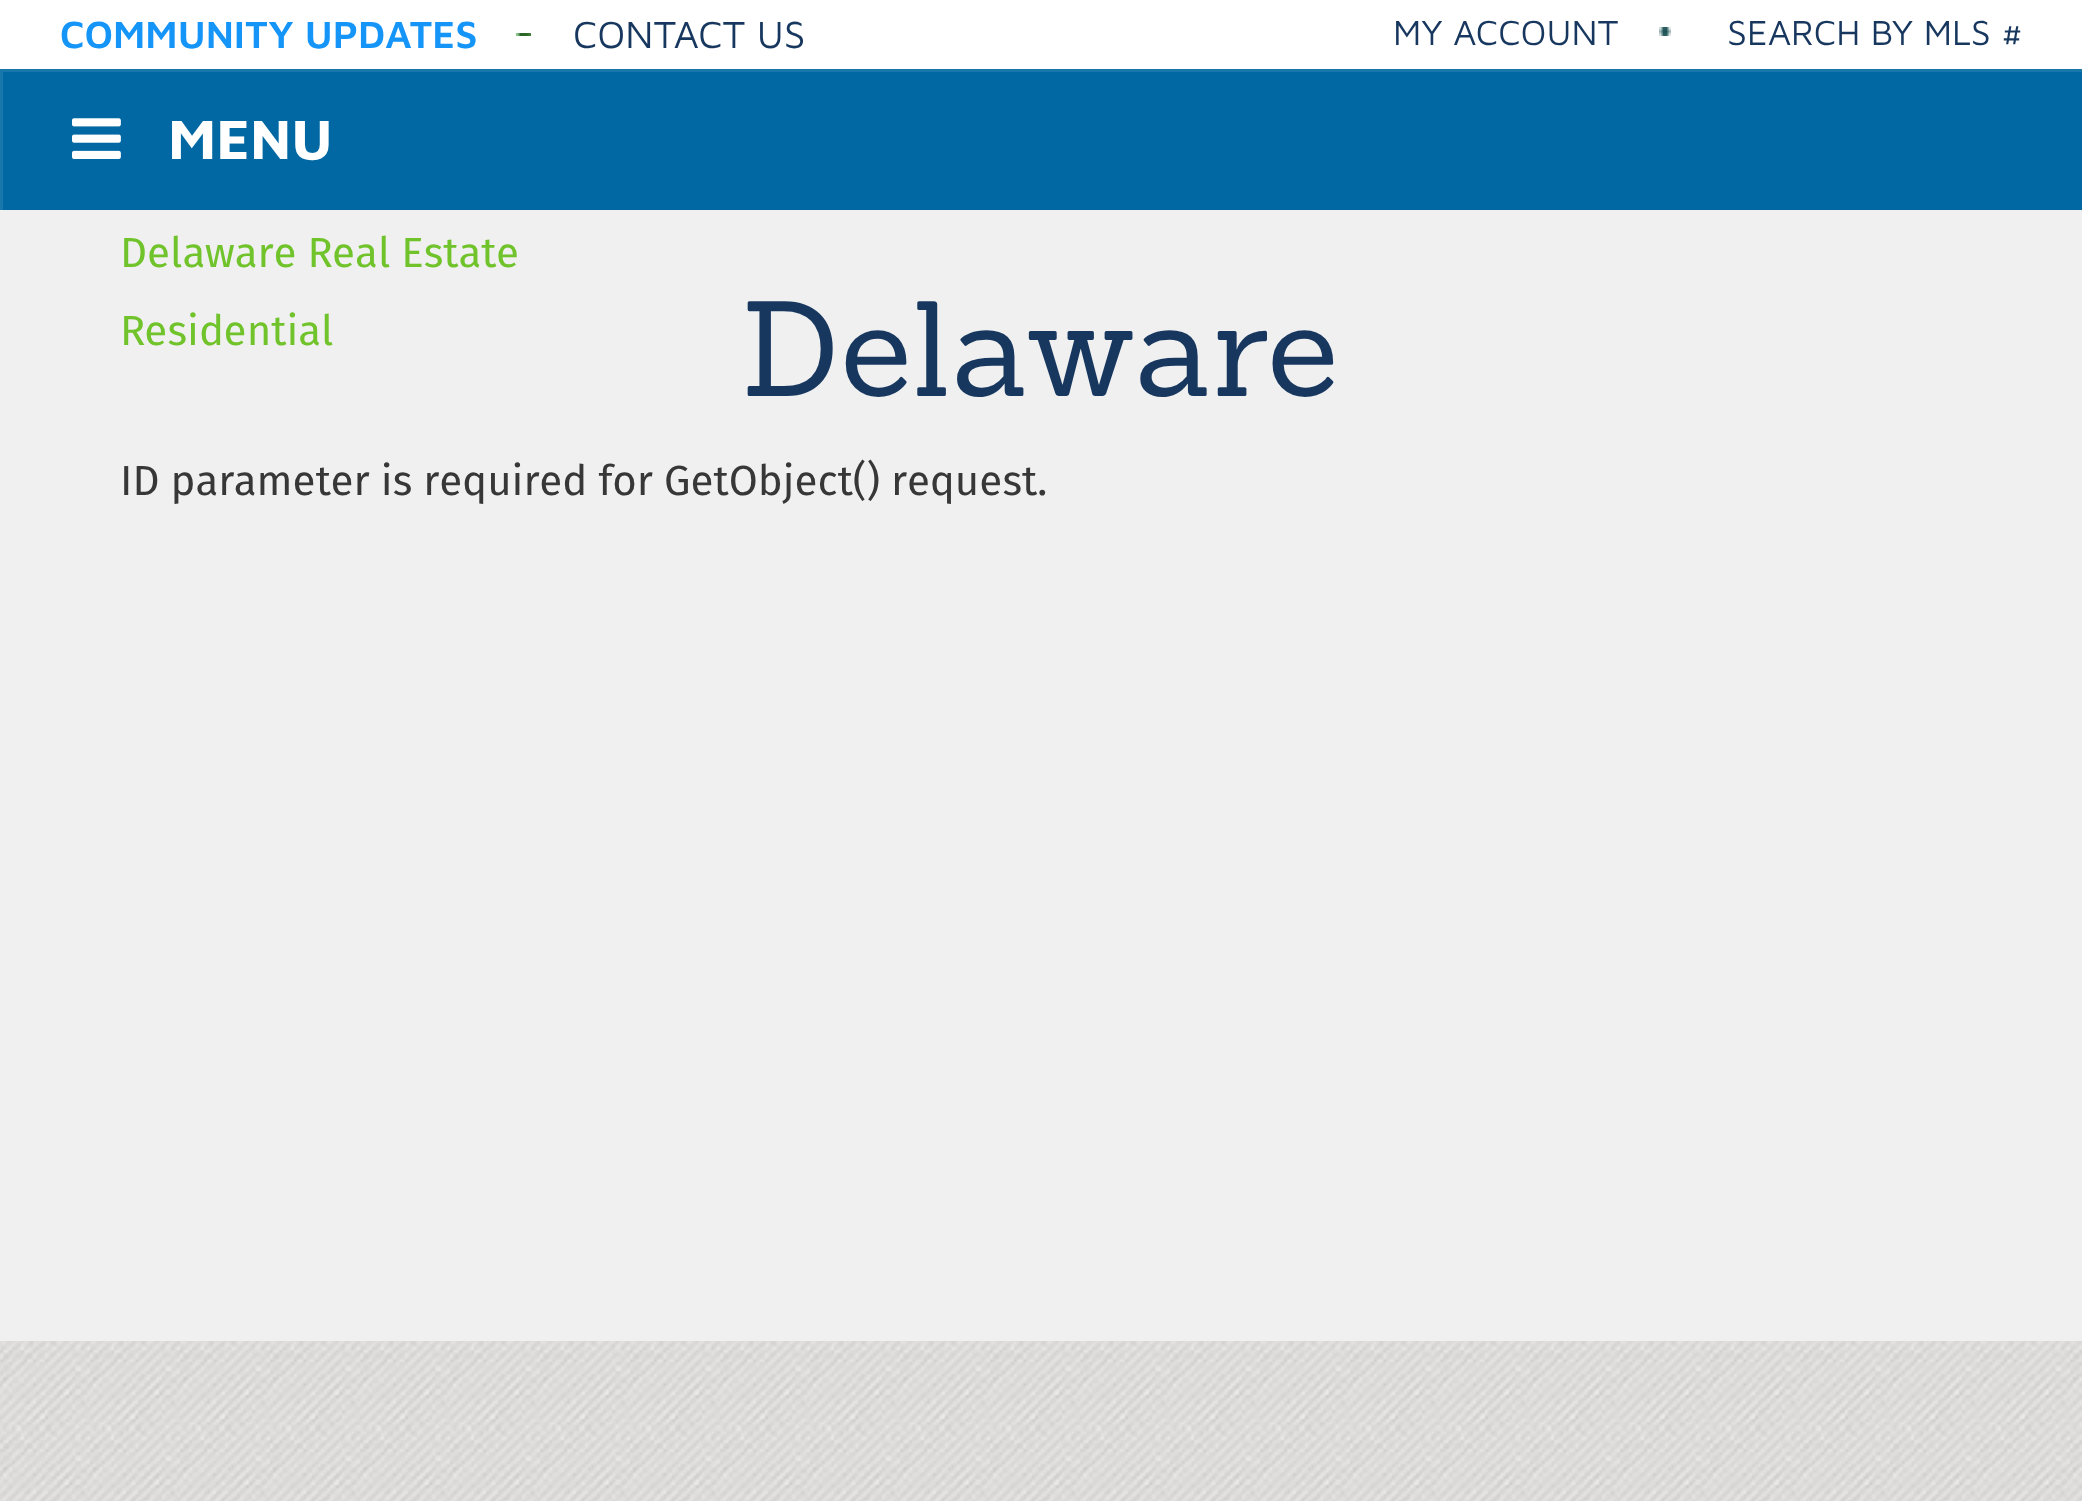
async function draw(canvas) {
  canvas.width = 2082;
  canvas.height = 1501;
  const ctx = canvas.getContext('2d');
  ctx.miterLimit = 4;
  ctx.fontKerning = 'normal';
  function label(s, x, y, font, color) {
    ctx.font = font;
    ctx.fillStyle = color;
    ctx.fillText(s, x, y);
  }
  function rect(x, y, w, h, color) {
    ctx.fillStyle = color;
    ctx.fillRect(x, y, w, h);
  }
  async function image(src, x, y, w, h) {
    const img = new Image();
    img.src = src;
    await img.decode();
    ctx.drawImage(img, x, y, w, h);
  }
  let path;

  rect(0, 0, 2082, 1501, '#fff');
  await image('assets/img1.png', 0, 1341, 2082, 160);
  rect(0, 210, 2082, 1131, '#f0f0f0');
  label('COMMUNITY UPDATES', 60, 48, '600 39px Maven Pro', '#1595f8');
  await image('assets/img2.png', 516, 33, 15, 3);
  label('CONTACT US', 573, 48, '39px Maven Pro', '#17375f');
  await image('assets/img3.png', 1659, 27, 12, 9);
  label('MY ACCOUNT', 1393, 45, '36px Maven Pro', '#17375f');
  label('SEARCH BY MLS #', 1727, 45, '36px Maven Pro', '#17375f');
  rect(3, 72, 2079, 138, '#0168a3');
  ctx.save();
  ctx.beginPath();
  ctx.rect(0, 69, 2082, 141);
  ctx.clip();
  ctx.fillStyle = '#1a77ac';
  path = new Path2D('M-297-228H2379V507H-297ZM3 72H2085V213H3Z');
  ctx.fill(path, 'evenodd');
  ctx.restore();
  await image('assets/img4.png', 72, 118, 49, 41);
  label('MENU', 168, 159, 'bold 57px Maven Pro', '#fff');
  ctx.letterSpacing = '1.25px';
  label('Delaware', 742, 396, '132px Sanchez', '#17375f');
  ctx.letterSpacing = '0px';
  label('Delaware Real Estate', 120, 267, '42px Fira Sans', '#70c32a');
  label('Residential', 120, 345, '42px Fira Sans', '#70c32a');
  label('ID parameter is required for GetObject() request.', 120, 495, '42px Fira Sans', '#373737');
}

draw(document.querySelector('canvas'));
